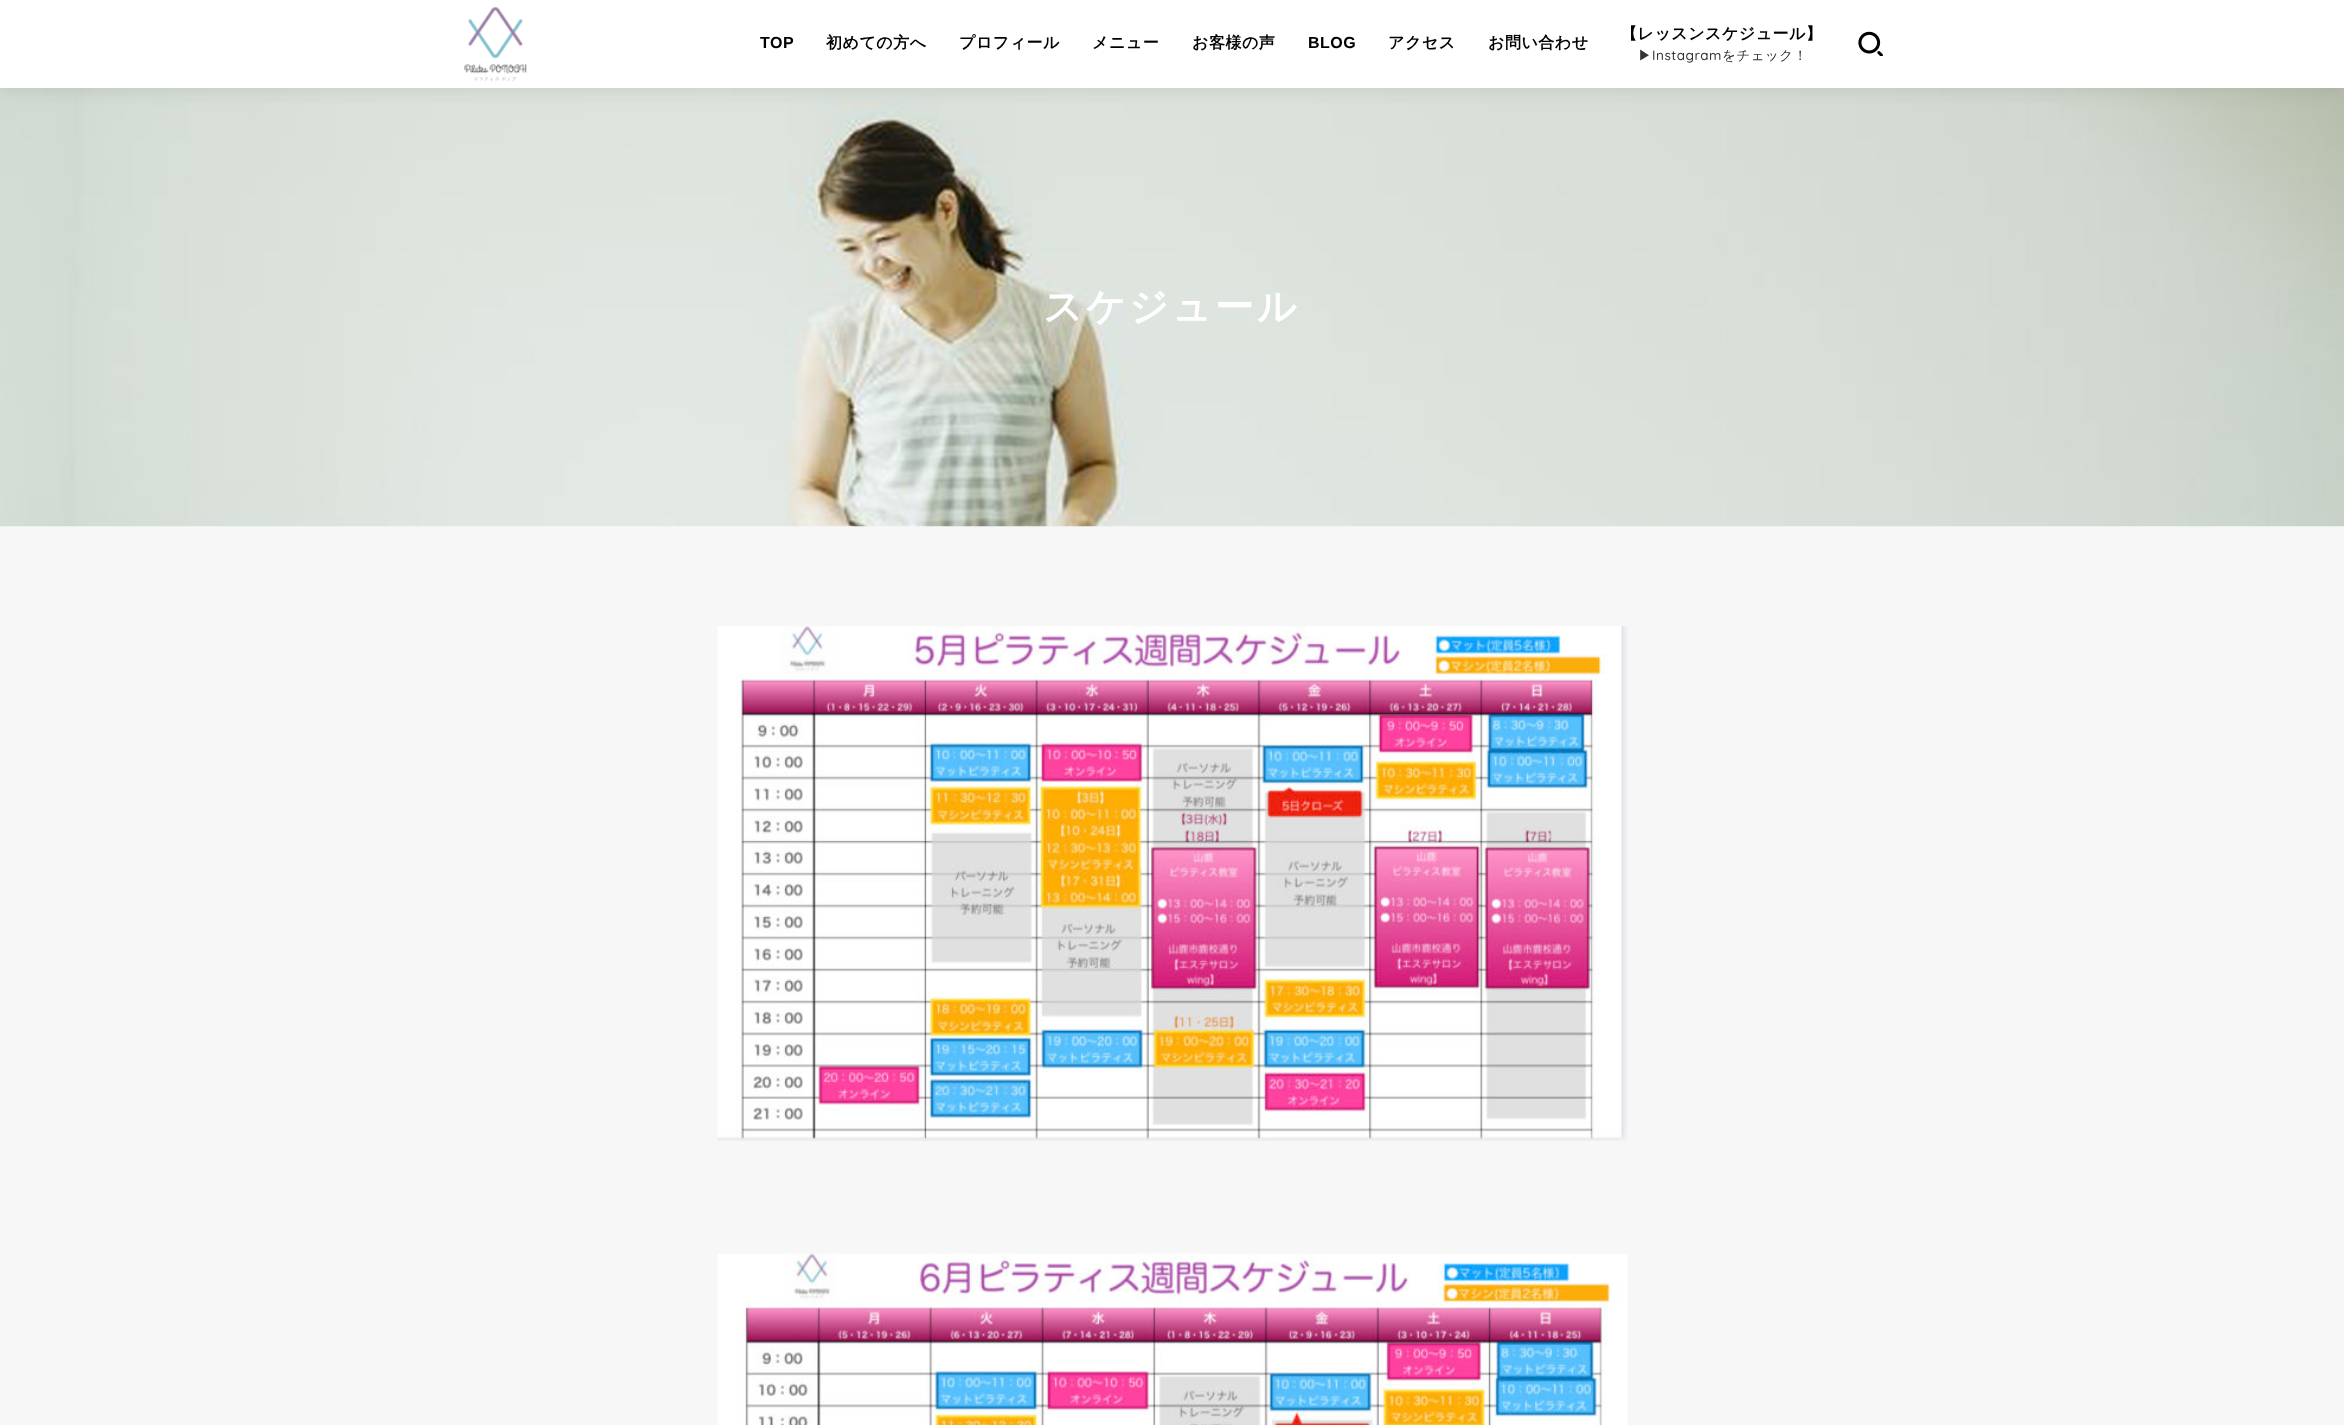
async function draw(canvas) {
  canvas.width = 2344;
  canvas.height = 1425;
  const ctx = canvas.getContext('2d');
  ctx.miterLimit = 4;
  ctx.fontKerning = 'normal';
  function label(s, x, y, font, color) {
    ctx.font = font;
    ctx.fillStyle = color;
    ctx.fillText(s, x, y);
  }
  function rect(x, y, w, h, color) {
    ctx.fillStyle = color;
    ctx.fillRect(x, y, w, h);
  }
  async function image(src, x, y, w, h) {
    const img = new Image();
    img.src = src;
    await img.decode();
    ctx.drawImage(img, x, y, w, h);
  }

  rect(0, 0, 2344, 1425, '#f7f7f7');
  await image('assets/img3.png', 0, 88, 2344, 439);
  ctx.fillStyle = '#66666633';
  ctx.filter = 'blur(9.5px)';
  ctx.beginPath();
  ctx.rect(0, 0, 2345, 88);
  ctx.fill();
  ctx.filter = 'none';
  rect(0, 0, 2344, 88, '#fff');
  await image('assets/img1.png', 464, 6, 63, 76);
  ctx.letterSpacing = '0.5px';
  label('TOP', 760, 48, 'bold 16px Liberation Sans', '#000');
  label('初めての方へ', 826, 48, 'bold 16px WenQuanYi Zen Hei', '#000');
  label('プロフィール', 959, 48, 'bold 16px WenQuanYi Zen Hei', '#000');
  label('メニュー', 1092, 48, 'bold 16px WenQuanYi Zen Hei', '#000');
  label('お客様の声', 1192, 48, 'bold 16px WenQuanYi Zen Hei', '#000');
  label('BLOG', 1308, 48, 'bold 16px Liberation Sans', '#000');
  label('アクセス', 1388, 48, 'bold 16px WenQuanYi Zen Hei', '#000');
  label('お問い合わせ', 1488, 48, 'bold 16px WenQuanYi Zen Hei', '#000');
  label('【レッスンスケジュール】', 1621, 39, 'bold 16px WenQuanYi Zen Hei', '#000');
  label('▶︎', 1638, 60, '500 13.5px WenQuanYi Zen Hei', '#333');
  label('Instagram', 1652, 60, '500 13.5px Quicksand', '#333');
  label('をチェック！', 1722, 60, '500 13.5px WenQuanYi Zen Hei', '#333');
  await image('assets/img2.png', 1858, 31, 25, 25);
  ctx.letterSpacing = '3px';
  label('スケジュール', 1043, 320, 'bold 39px WenQuanYi Zen Hei', '#fff');
  await image('assets/img4.png', 717, 626, 911, 515);
  await image('assets/img5.png', 717, 1253, 911, 172);
}

draw(document.querySelector('canvas'));
